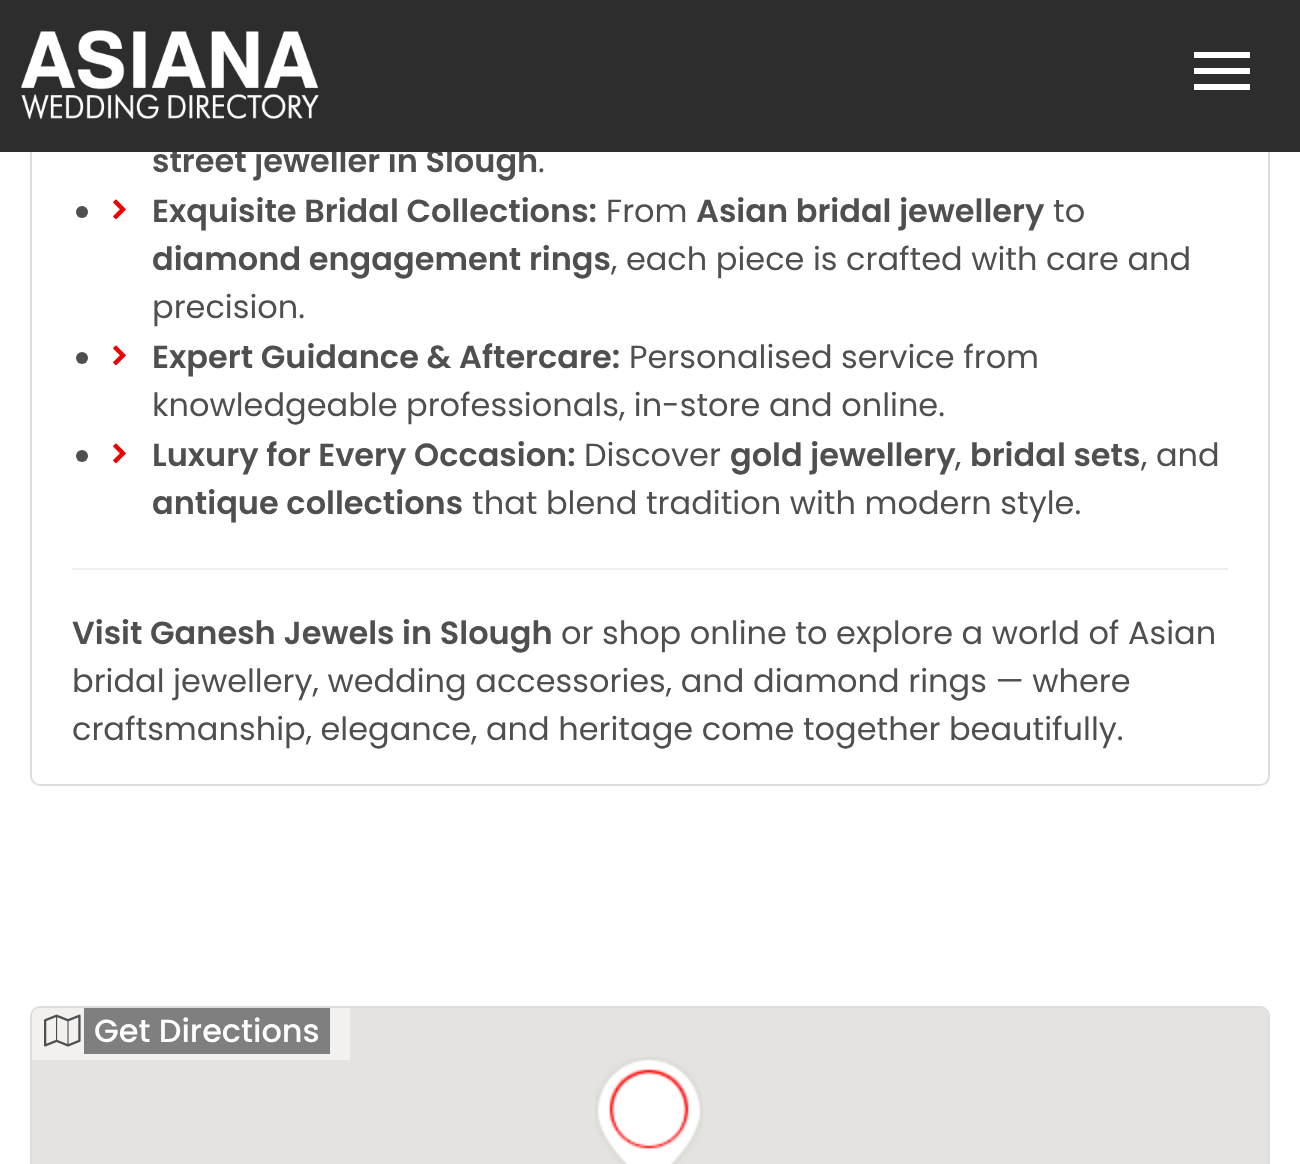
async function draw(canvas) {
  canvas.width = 1300;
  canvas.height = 1164;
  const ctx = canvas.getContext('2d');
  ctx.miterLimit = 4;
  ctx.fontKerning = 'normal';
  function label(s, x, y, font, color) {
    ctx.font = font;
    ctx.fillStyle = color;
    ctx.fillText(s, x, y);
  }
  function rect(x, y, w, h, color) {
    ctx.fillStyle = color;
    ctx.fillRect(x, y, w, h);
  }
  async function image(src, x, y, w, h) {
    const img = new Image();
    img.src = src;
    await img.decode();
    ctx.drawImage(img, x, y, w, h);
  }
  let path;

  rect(0, 0, 1300, 1164, '#fff');
  ctx.beginPath();
  ctx.roundRect(31, -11, 1238, 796, 9);
  ctx.strokeStyle = '#dedede';
  ctx.lineWidth = 2;
  ctx.stroke();
  label('street jeweller in Slough', 152, 172, '600 32px Poppins', '#4f4f4f');
  rect(0, 0, 1300, 152, '#2d2d2d');
  await image('assets/img1.png', 20, 30, 299, 90);
  rect(1194, 52, 56, 6, '#fff');
  rect(1194, 68, 56, 6, '#fff');
  rect(1194, 84, 56, 6, '#fff');
  label('.', 538, 172, '32px Poppins', '#4f4f4f');
  ctx.beginPath();
  ctx.arc(82, 212, 6, 0, 2 * Math.PI);
  ctx.fill();
  await image('assets/img2.png', 113, 199, 13, 21);
  label('Exquisite Bridal Collections:', 152, 222, '600 32px Poppins', '#4f4f4f');
  label('From', 606, 222, '32px Poppins', '#4f4f4f');
  label('Asian bridal jewellery', 696, 222, '600 32px Poppins', '#4f4f4f');
  label('to', 1053, 222, '32px Poppins', '#4f4f4f');
  label('diamond engagement rings', 152, 270, '600 32px Poppins', '#4f4f4f');
  label(', each piece is crafted with care and', 611, 270, '32px Poppins', '#4f4f4f');
  label('precision.', 152, 318, '32px Poppins', '#4f4f4f');
  ctx.beginPath();
  ctx.arc(82, 358, 6, 0, 2 * Math.PI);
  ctx.fill();
  await image('assets/img2.png', 113, 345, 13, 21);
  label('Expert Guidance & Aftercare:', 152, 368, '600 32px Poppins', '#4f4f4f');
  label('Personalised service from', 629, 368, '32px Poppins', '#4f4f4f');
  label('knowledgeable professionals, in-store and online.', 152, 416, '32px Poppins', '#4f4f4f');
  ctx.beginPath();
  ctx.arc(82, 456, 6, 0, 2 * Math.PI);
  ctx.fill();
  await image('assets/img2.png', 113, 443, 13, 21);
  label('Luxury for Every Occasion:', 152, 466, '600 32px Poppins', '#4f4f4f');
  label('Discover', 584, 466, '32px Poppins', '#4f4f4f');
  label('gold jewellery', 730, 466, '600 32px Poppins', '#4f4f4f');
  label(',', 955, 466, '32px Poppins', '#4f4f4f');
  label('bridal sets', 970, 466, '600 32px Poppins', '#4f4f4f');
  label(', and', 1141, 466, '32px Poppins', '#4f4f4f');
  label('antique collections', 152, 514, '600 32px Poppins', '#4f4f4f');
  label('that blend tradition with modern style.', 472, 514, '32px Poppins', '#4f4f4f');
  rect(72, 568, 1156, 2, '#eee');
  label('Visit Ganesh Jewels in Slough', 72, 644, '600 32px Poppins', '#4f4f4f');
  label('or shop online to explore a world of Asian', 561, 644, '32px Poppins', '#4f4f4f');
  label('bridal jewellery, wedding accessories, and diamond rings — where', 72, 692, '32px Poppins', '#4f4f4f');
  label('craftsmanship, elegance, and heritage come together beautifully.', 72, 740, '32px Poppins', '#4f4f4f');
  ctx.beginPath();
  ctx.roundRect(31, 1007, 1238, 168, 9);
  ctx.stroke();
  ctx.fillStyle = '#e5e3df';
  path = new Path2D('M40 1008H1260C1264.5 1008 1268 1011.5 1268 1016V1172H32V1016C32 1011.5 35.5 1008 40 1008Z');
  ctx.fill(path);
  await image('assets/img3.png', 595, 1057, 108, 107);
  ctx.fillStyle = '#ffffff80';
  ctx.beginPath();
  ctx.roundRect(32, 1008, 318, 52, [8, 0, 0, 0]);
  ctx.fill();
  await image('assets/img4.png', 44, 1014, 37, 33);
  rect(84, 1008, 246, 46, '#7f7f7f');
  label('Get Directions', 94, 1042, '500 32px Poppins', '#fff');
}

draw(document.querySelector('canvas'));
